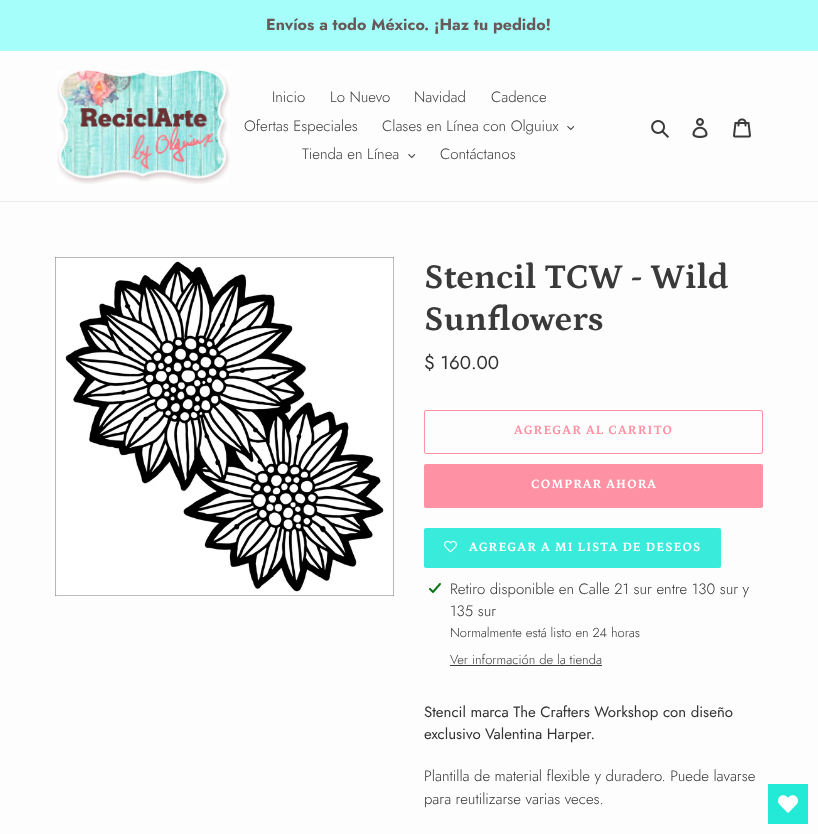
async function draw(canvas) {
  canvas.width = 818;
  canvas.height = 834;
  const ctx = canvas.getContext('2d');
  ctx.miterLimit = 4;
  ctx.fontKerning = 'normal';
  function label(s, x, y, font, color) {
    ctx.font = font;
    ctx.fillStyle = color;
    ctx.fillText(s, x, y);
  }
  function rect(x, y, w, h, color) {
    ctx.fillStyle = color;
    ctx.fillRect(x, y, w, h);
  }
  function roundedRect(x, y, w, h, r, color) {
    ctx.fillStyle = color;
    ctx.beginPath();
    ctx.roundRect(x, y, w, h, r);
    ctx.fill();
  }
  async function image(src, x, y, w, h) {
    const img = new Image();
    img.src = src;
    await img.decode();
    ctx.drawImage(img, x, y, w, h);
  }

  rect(0, 0, 818, 834, '#fdfdfd');
  rect(0, 0, 818, 51, '#a5fef9');
  label('Envíos a todo México. ¡Haz tu pedido!', 266, 30, 'bold 16px Jost', '#685858');
  rect(0, 201, 818, 1, '#ebebeb');
  await image('assets/img1.png', 57, 70, 173, 114);
  label('Inicio', 272, 102, '300 15px Jost', '#3a3a3a');
  label('Lo Nuevo', 330, 102, '300 15px Jost', '#3a3a3a');
  label('Navidad', 414, 102, '300 15px Jost', '#3a3a3a');
  label('Cadence', 491, 102, '300 15px Jost', '#3a3a3a');
  label('Ofertas Especiales', 244, 131, '300 15px Jost', '#3a3a3a');
  label('Clases en Línea con Olguiux', 382, 131, '300 15px Jost', '#3a3a3a');
  await image('assets/img2.png', 567, 126, 7, 4);
  label('Tienda en Línea', 302, 159, '300 15px Jost', '#3a3a3a');
  await image('assets/img2.png', 408, 154, 7, 4);
  label('Contáctanos', 440, 159, '300 15px Jost', '#3a3a3a');
  await image('assets/img3.png', 651, 120, 18, 18);
  await image('assets/img4.png', 692, 118, 16, 20);
  await image('assets/img5.png', 733, 118, 18, 20);
  await image('assets/img6.png', 55, 257, 339, 339);
  label('Stencil TCW - Wild', 424, 288, 'bold 35px Petrona', '#3a3a3a');
  label('Sunflowers', 424, 330, 'bold 35px Petrona', '#3a3a3a');
  label('$ 160.00', 424, 369, '18.75px Jost', '#333232');
  ctx.beginPath();
  ctx.roundRect(424.5, 410.5, 338, 43, 1.5);
  ctx.strokeStyle = '#ff91a4';
  ctx.stroke();
  ctx.letterSpacing = '1.05px';
  label('AGREGAR AL CARRITO', 514, 434, 'bold 13px Petrona', '#ff91a4');
  roundedRect(424, 464, 339, 44, 2, '#ff91a4');
  label('COMPRAR AHORA', 531, 488, 'bold 13px Petrona', '#fff');
  roundedRect(424, 528, 297, 40, 2, '#39ebdb');
  await image('assets/img7.png', 444, 540, 13, 13);
  label('AGREGAR A MI LISTA DE DESEOS', 469, 551, 'bold 13px Petrona', '#fff');
  await image('assets/img8.png', 429, 583, 12, 10);
  ctx.letterSpacing = '0px';
  label('Retiro disponible en Calle 21 sur entre 130 sur y', 450, 594, '300 15px Jost', '#333232');
  label('135 sur', 450, 616, '300 15px Jost', '#333232');
  label('Normalmente está listo en 24 horas', 450, 637, '300 13px Jost', '#333232');
  label('Ver información de la tienda', 450, 664, '300 13px Jost', '#3a3a3a');
  rect(450, 665, 152, 1, '#3a3a3a');
  label('Stencil marca The Crafters Workshop con diseño', 424, 717, '15px Jost', '#333232');
  label('exclusivo Valentina Harper.', 424, 739, '15px Jost', '#333232');
  label('Plantilla de material flexible y duradero. Puede lavarse', 424, 781, '300 15px Jost', '#333232');
  label('para reutilizarse varias veces.', 424, 804, '300 15px Jost', '#333232');
  rect(768, 784, 40, 40, '#23e9d7');
  await image('assets/img9.png', 778, 795, 20, 18);
}

draw(document.querySelector('canvas'));
